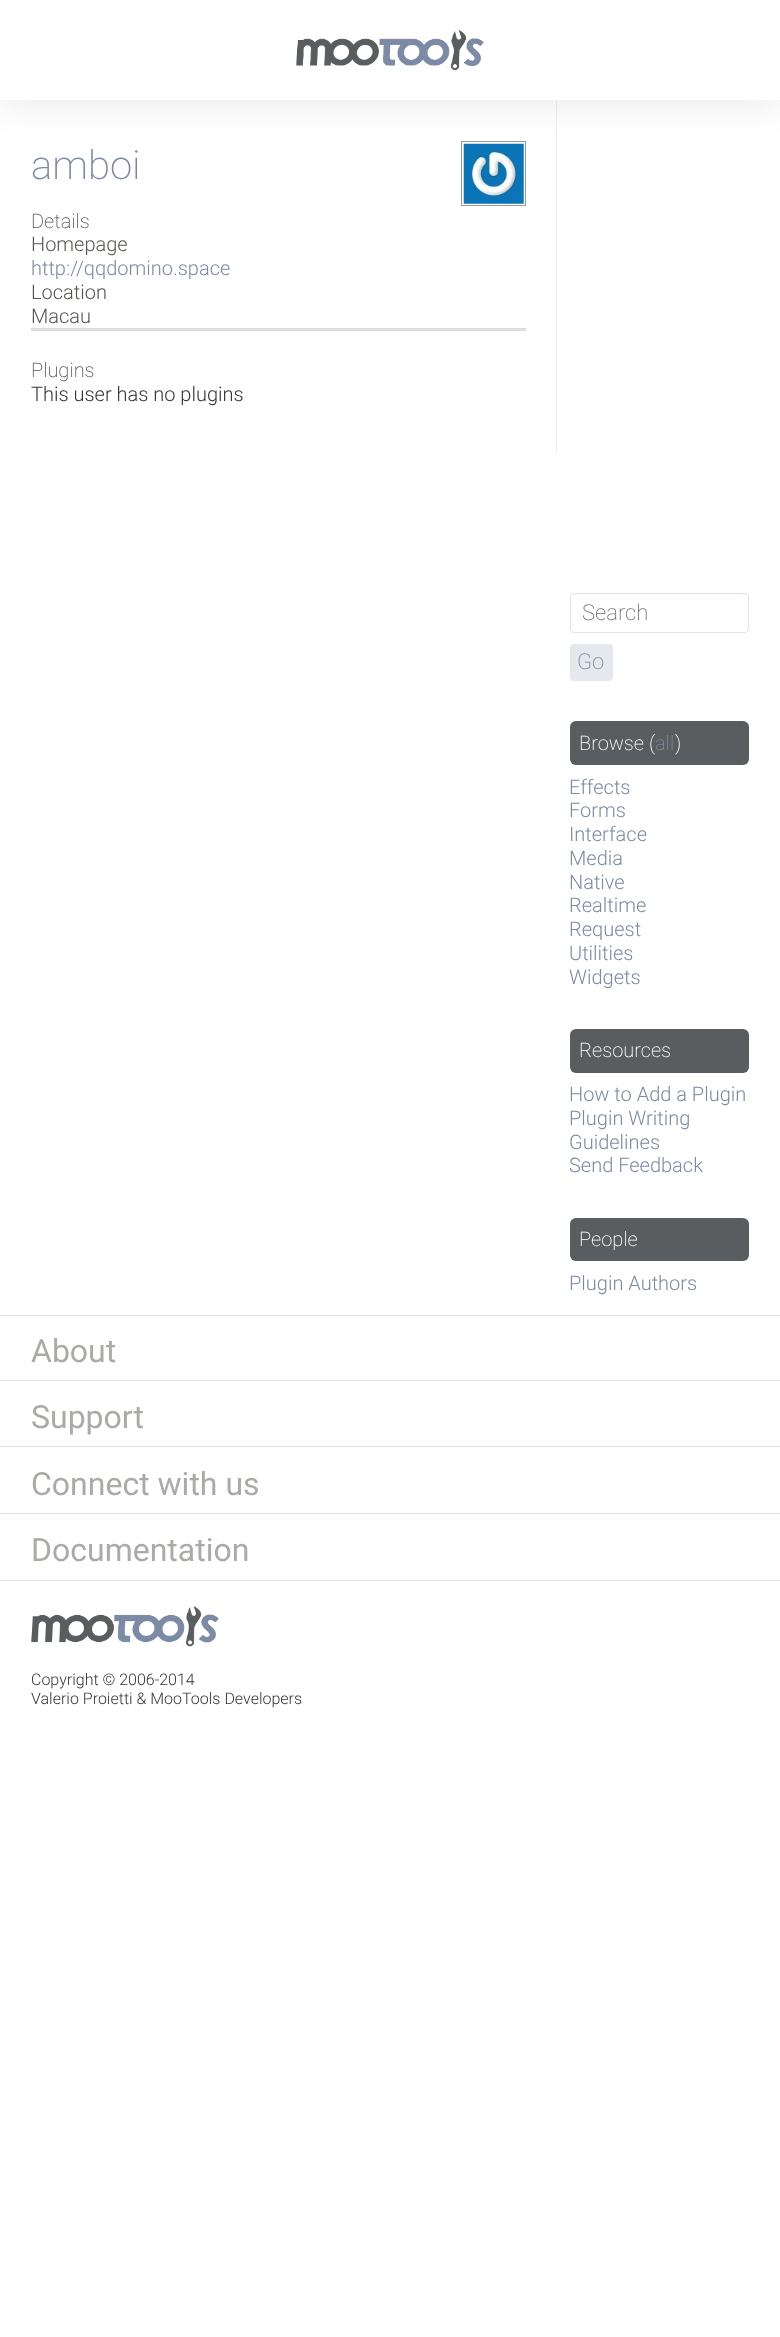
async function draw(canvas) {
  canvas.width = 780;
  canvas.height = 2337;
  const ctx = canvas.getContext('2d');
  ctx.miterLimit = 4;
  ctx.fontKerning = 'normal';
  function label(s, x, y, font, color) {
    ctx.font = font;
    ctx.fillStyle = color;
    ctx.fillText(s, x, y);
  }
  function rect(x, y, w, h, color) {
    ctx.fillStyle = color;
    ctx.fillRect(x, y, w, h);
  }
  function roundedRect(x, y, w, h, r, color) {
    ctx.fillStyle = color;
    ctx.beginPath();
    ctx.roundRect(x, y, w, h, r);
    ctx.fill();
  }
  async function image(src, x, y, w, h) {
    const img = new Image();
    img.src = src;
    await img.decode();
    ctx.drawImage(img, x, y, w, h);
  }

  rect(0, 0, 780, 2337, '#fff');
  rect(556, 100, 1, 353, '#eee');
  ctx.strokeStyle = '#999';
  ctx.strokeRect(461.5, 141.5, 64, 64);
  await image('assets/img2.png', 463, 143, 61, 61);
  ctx.fillStyle = '#0000001a';
  ctx.filter = 'blur(19px)';
  ctx.beginPath();
  ctx.rect(0, 0, 780, 100);
  ctx.fill();
  ctx.filter = 'none';
  rect(0, 0, 780, 100, '#fff');
  await image('assets/img1.png', 296, 29, 188, 42);
  label('amboi', 31, 179, '200 40px Roboto', '#7d8aa5');
  label('Details', 31, 228, '200 20px Roboto', '#575551');
  label('Homepage', 31, 251, '300 20px Roboto', '#575551');
  label('http://qqdomino.space', 31, 275, '300 20px Roboto', '#7d8aa5');
  label('Location', 31, 299, '300 20px Roboto', '#575551');
  label('Macau', 31, 323, '300 20px Roboto', '#575551');
  rect(31, 328, 495, 3, '#ddd');
  label('Plugins', 31, 377, '200 20px Roboto', '#575551');
  label('This user has no plugins', 31, 401, '300 20px Roboto', '#373531');
  ctx.beginPath();
  ctx.roundRect(570.5, 593.5, 178, 39, 3.5);
  ctx.strokeStyle = '#e5e3df';
  ctx.stroke();
  label('Search', 582, 620, '200 22px Roboto', '#757575');
  roundedRect(570, 644, 43, 37, 4, '#e5e8ed');
  label('Go', 577, 669, '200 22px Roboto', '#7d8aa5');
  roundedRect(570, 721, 179, 44, 6, '#5a5d60');
  label('Browse (', 579, 750, '200 20px Roboto', '#fff');
  label('all', 655, 750, '200 20px Roboto', '#7d8aa5');
  label(')', 675, 750, '200 20px Roboto', '#fff');
  label('Effects', 569, 794, '300 20px Roboto', '#7d8aa5');
  label('Forms', 569, 817, '300 20px Roboto', '#7d8aa5');
  label('Interface', 569, 841, '300 20px Roboto', '#7d8aa5');
  label('Media', 569, 865, '300 20px Roboto', '#7d8aa5');
  label('Native', 569, 889, '300 20px Roboto', '#7d8aa5');
  label('Realtime', 569, 912, '300 20px Roboto', '#7d8aa5');
  label('Request', 569, 936, '300 20px Roboto', '#7d8aa5');
  label('Utilities', 569, 960, '300 20px Roboto', '#7d8aa5');
  label('Widgets', 569, 984, '300 20px Roboto', '#7d8aa5');
  roundedRect(570, 1029, 179, 44, 6, '#5a5d60');
  label('Resources', 579, 1057, '200 20px Roboto', '#fff');
  label('How to Add a Plugin', 569, 1101, '300 20px Roboto', '#7d8aa5');
  label('Plugin Writing', 569, 1125, '300 20px Roboto', '#7d8aa5');
  label('Guidelines', 569, 1149, '300 20px Roboto', '#7d8aa5');
  label('Send Feedback', 569, 1172, '300 20px Roboto', '#7d8aa5');
  roundedRect(570, 1218, 179, 43, 6, '#5a5d60');
  label('People', 579, 1246, '200 20px Roboto', '#fff');
  label('Plugin Authors', 569, 1290, '300 20px Roboto', '#7d8aa5');
  rect(0, 1315, 780, 1, '#dedfdf');
  rect(0, 1380, 780, 1, '#e5e3df');
  label('About', 31, 1362, '32px Roboto', '#acaaa7');
  rect(0, 1446, 780, 1, '#e5e3df');
  label('Support', 31, 1428, '32px Roboto', '#acaaa7');
  rect(0, 1513, 780, 1, '#e5e3df');
  label('Connect with us', 31, 1495, '32px Roboto', '#acaaa7');
  rect(0, 1580, 780, 1, '#e5e3df');
  label('Documentation', 31, 1561, '32px Roboto', '#acaaa7');
  await image('assets/img3.png', 31, 1606, 188, 41);
  label('Copyright © 2006-2014', 31, 1685, '300 16px Roboto', '#373531');
  label('Valerio Proietti & MooTools Developers', 31, 1704, '300 16px Roboto', '#373531');
}

draw(document.querySelector('canvas'));
